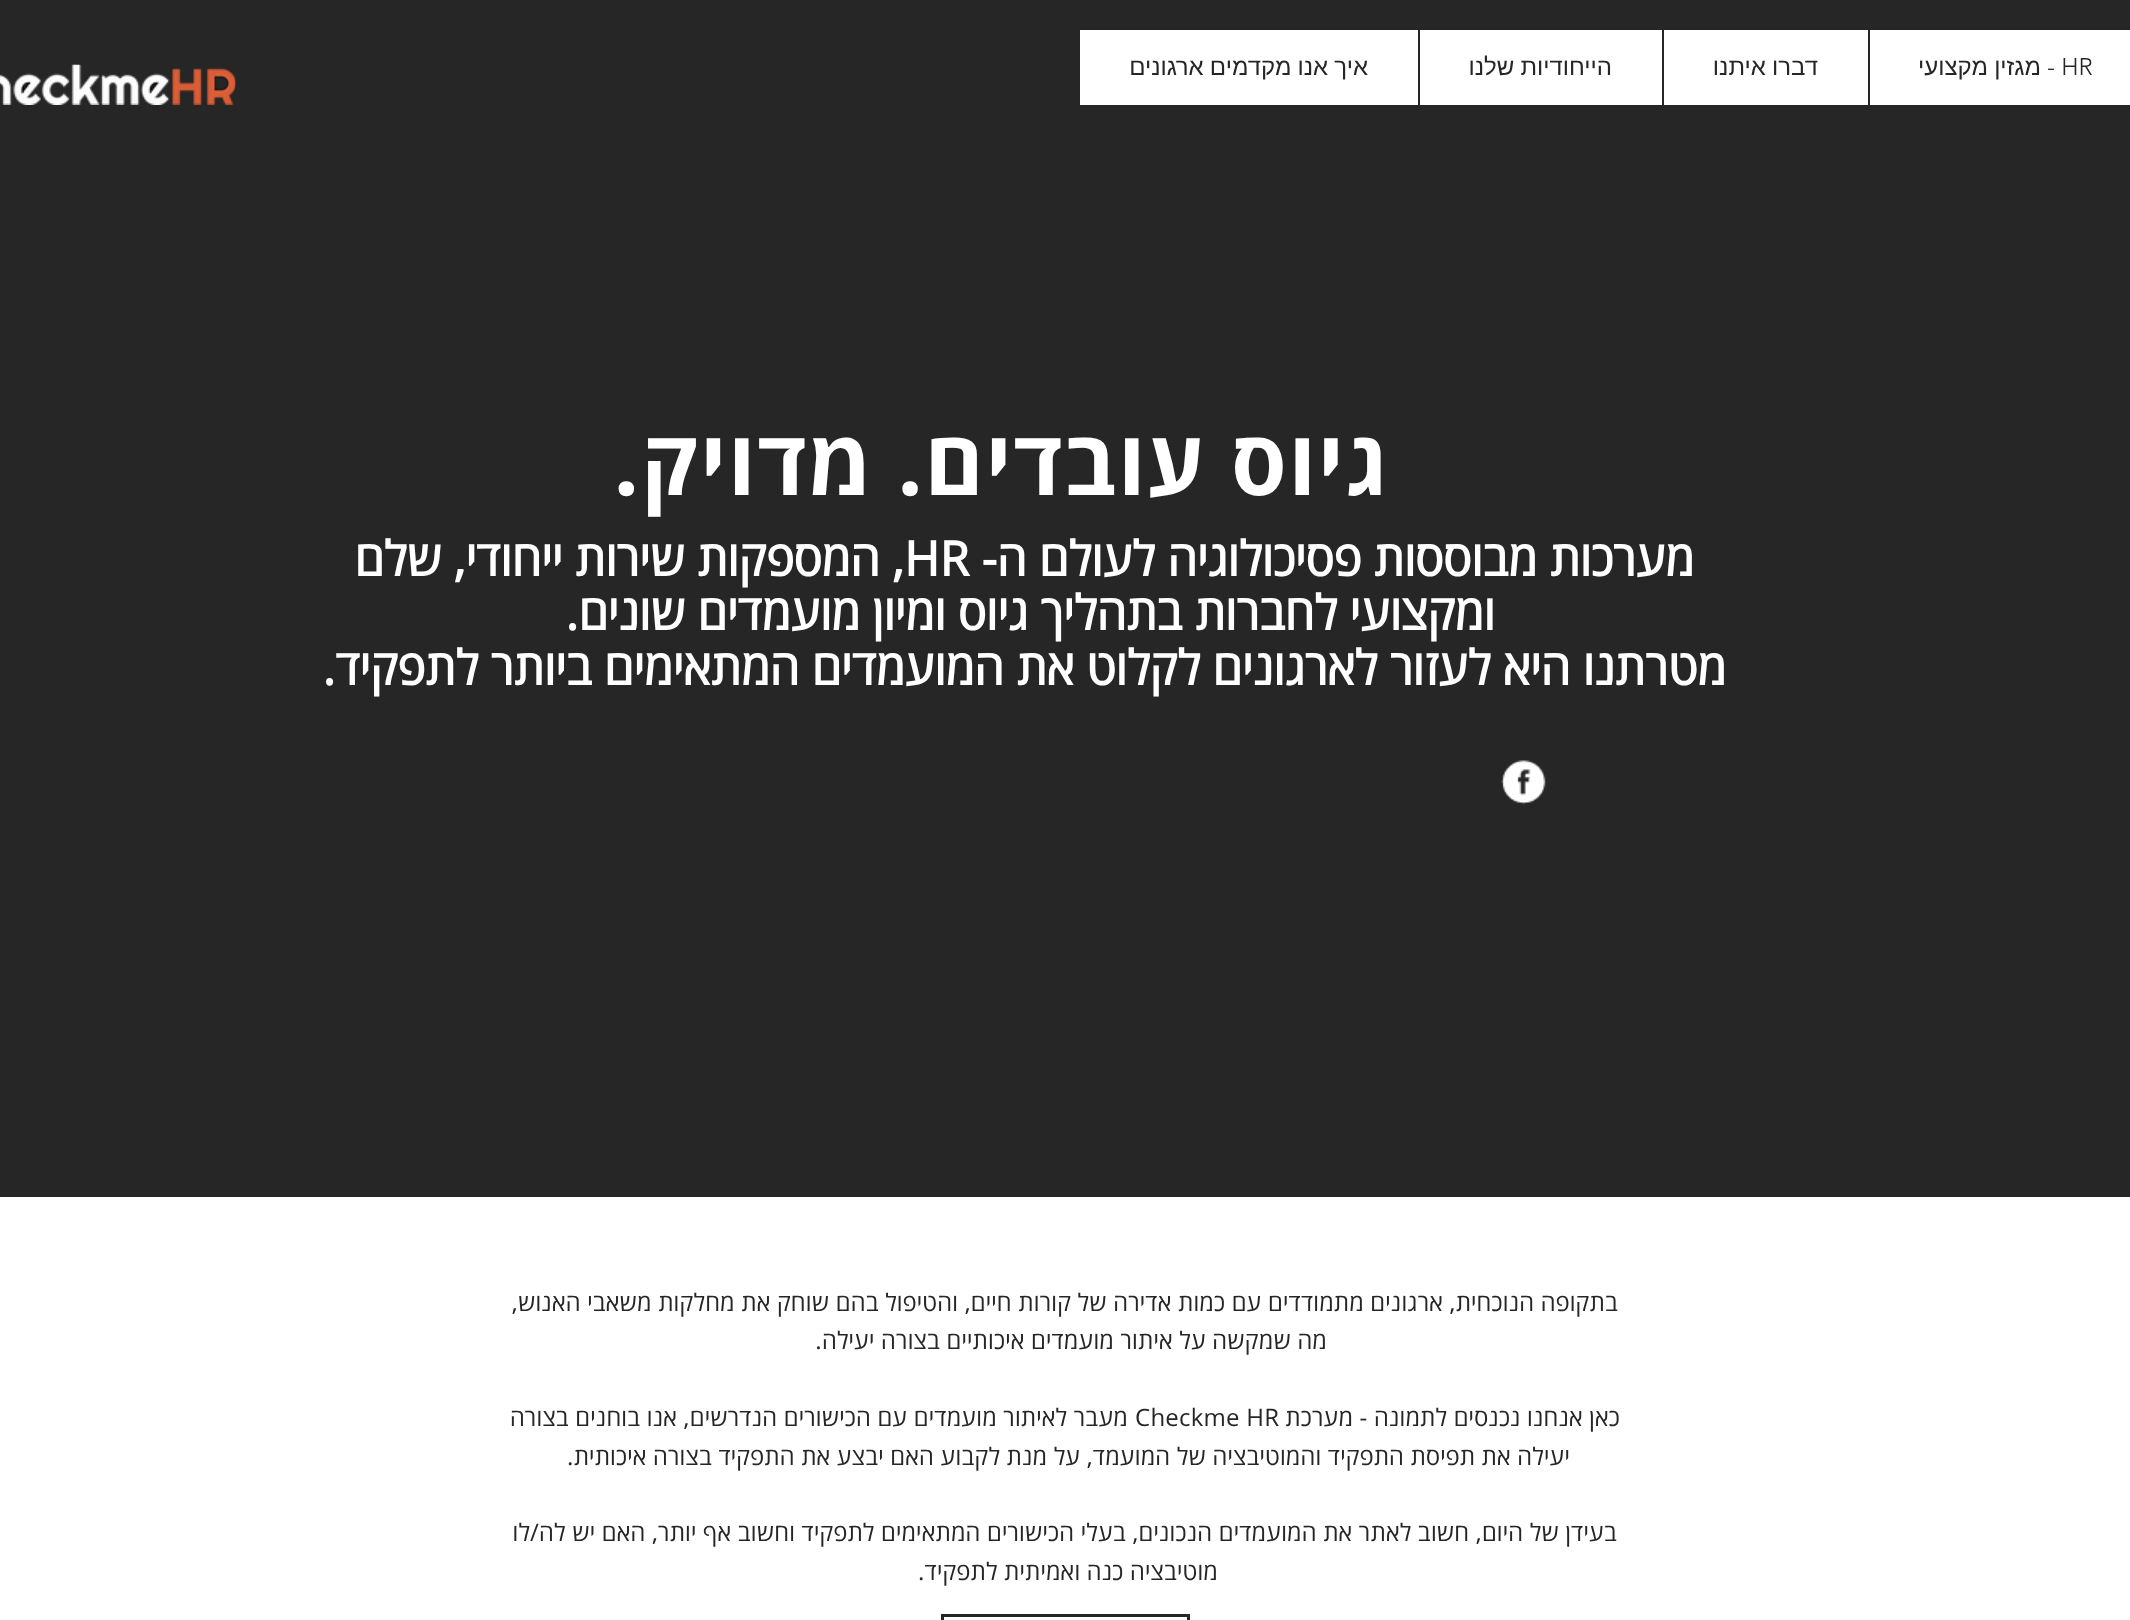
async function draw(canvas) {
  canvas.width = 2130;
  canvas.height = 1620;
  const ctx = canvas.getContext('2d');
  ctx.miterLimit = 4;
  ctx.fontKerning = 'normal';
  function label(s, x, y, font, color) {
    ctx.font = font;
    ctx.fillStyle = color;
    ctx.fillText(s, x, y);
  }
  function rect(x, y, w, h, color) {
    ctx.fillStyle = color;
    ctx.fillRect(x, y, w, h);
  }
  async function image(src, x, y, w, h) {
    const img = new Image();
    img.src = src;
    await img.decode();
    ctx.drawImage(img, x, y, w, h);
  }

  rect(0, 0, 2130, 1620, '#262626');
  rect(1080, 30, 1050, 75, '#fff');
  rect(1868, 30, 2, 75, '#262626');
  label('- HR', 2047, 75, '300 24px "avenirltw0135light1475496"', '#262626');
  ctx.wordSpacing = '-0.5px';
  ctx.direction = 'rtl';
  label('מגזין מקצועי', 2041, 75, '24px Liberation Sans', '#262626');
  rect(1662, 30, 2, 75, '#262626');
  label('דברו איתנו', 1818, 75, '24px Liberation Sans', '#262626');
  rect(1418, 30, 2, 75, '#262626');
  label('הייחודיות שלנו', 1612, 75, '24px Liberation Sans', '#262626');
  label('איך אנו מקדמים ארגונים', 1368, 75, '24px Liberation Sans', '#262626');
  await image('assets/img1.png', 0, 64, 236, 41);
  ctx.letterSpacing = '1.75px';
  ctx.wordSpacing = '0px';
  label('גיוס עובדים. מדויק.', 1389, 495, 'bold 90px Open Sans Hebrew', '#fff');
  ctx.letterSpacing = '0px';
  label('מערכות מבוססות פסיכולוגיה לעולם ה-', 1694, 576, 'bold 48px "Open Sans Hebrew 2"', '#fff');
  ctx.direction = 'ltr';
  label('HR', 904, 576, 'bold 48px "Open Sans Hebrew 2"', '#fff');
  ctx.direction = 'rtl';
  label(', המספקות שירות ייחודי, שלם', 904, 576, 'bold 48px "Open Sans Hebrew 2"', '#fff');
  label('ומקצועי לחברות בתהליך גיוס ומיון מועמדים שונים.', 1495, 630, 'bold 48px "Open Sans Hebrew 2"', '#fff');
  label('מטרתנו היא לעזור לארגונים לקלוט את המועמדים המתאימים ביותר לתפקיד.', 1726, 685, 'bold 48px "Open Sans Hebrew 2"', '#fff');
  await image('assets/img2.png', 1501, 760, 45, 45);
  rect(0, 1197, 2130, 423, '#fff');
  ctx.letterSpacing = '0.24px';
  label('בתקופה הנוכחית, ארגונים מתמודדים עם כמות אדירה של קורות חיים, והטיפול בהם שוחק את מחלקות משאבי האנוש,', 1618, 1311, '24px Open Sans Hebrew', '#262626');
  label('מה שמקשה על איתור מועמדים איכותיים בצורה יעילה.', 1327, 1349, '24px Open Sans Hebrew', '#262626');
  label('כאן אנחנו נכנסים לתמונה - מערכת', 1620, 1426, '24px Open Sans Hebrew', '#262626');
  ctx.direction = 'ltr';
  label('Checkme HR', 1135, 1426, '24px Open Sans Hebrew', '#262626');
  ctx.direction = 'rtl';
  label('מעבר לאיתור מועמדים עם הכישורים הנדרשים, אנו בוחנים בצורה', 1128, 1426, '24px Open Sans Hebrew', '#262626');
  label('יעילה את תפיסת התפקיד והמוטיבציה של המועמד, על מנת לקבוע האם יבצע את התפקיד בצורה איכותית.', 1570, 1465, '24px Open Sans Hebrew', '#262626');
  label('בעידן של היום, חשוב לאתר את המועמדים הנכונים, בעלי הכישורים המתאימים לתפקיד וחשוב אף יותר, האם יש לה/לו', 1617, 1541, '24px Open Sans Hebrew', '#262626');
  label('מוטיבציה כנה ואמיתית לתפקיד.', 1218, 1580, '24px Open Sans Hebrew', '#262626');
  ctx.strokeStyle = '#262626';
  ctx.lineWidth = 3;
  ctx.strokeRect(942.5, 1615.5, 246, 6);
}

draw(document.querySelector('canvas'));
